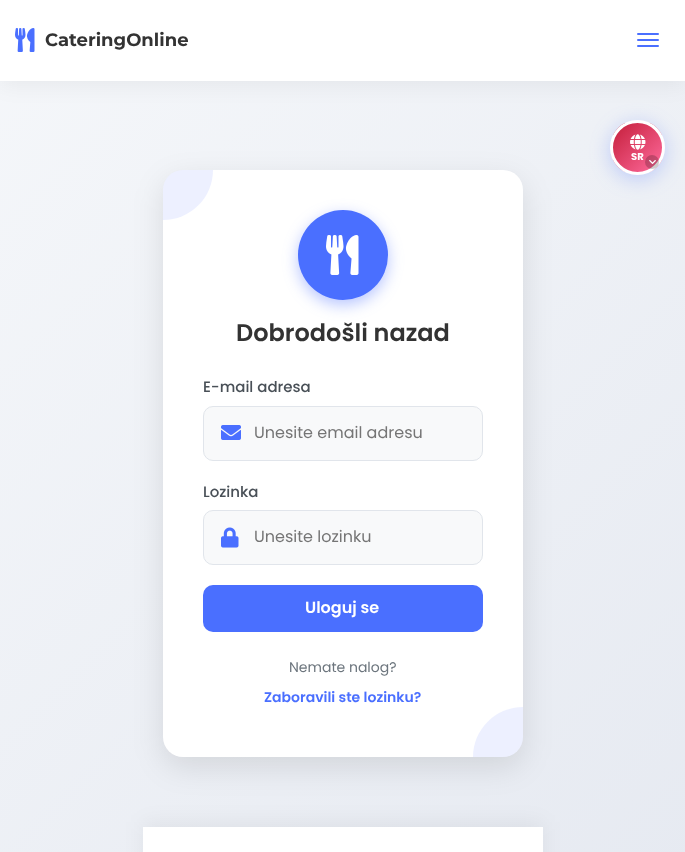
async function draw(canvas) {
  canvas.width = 685;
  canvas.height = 852;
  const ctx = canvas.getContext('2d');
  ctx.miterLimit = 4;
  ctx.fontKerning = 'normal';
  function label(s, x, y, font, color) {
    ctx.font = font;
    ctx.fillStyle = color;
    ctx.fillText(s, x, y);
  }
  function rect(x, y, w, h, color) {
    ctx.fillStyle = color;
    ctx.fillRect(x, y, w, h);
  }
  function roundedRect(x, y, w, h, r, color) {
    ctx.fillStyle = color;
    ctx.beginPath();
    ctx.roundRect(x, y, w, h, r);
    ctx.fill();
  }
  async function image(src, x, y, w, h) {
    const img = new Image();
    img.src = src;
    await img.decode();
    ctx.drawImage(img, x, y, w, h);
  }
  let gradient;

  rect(0, 0, 685, 852, '#fff');
  gradient = ctx.createLinearGradient(-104, 105, 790, 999);
  gradient.addColorStop(0, '#f5f7fa');
  gradient.addColorStop(1, '#e4e8f0');
  ctx.fillStyle = gradient;
  ctx.fillRect(0, 81, 685, 771);
  ctx.fillStyle = '#0000000d';
  ctx.filter = 'blur(10px)';
  ctx.beginPath();
  ctx.rect(0, 5, 685, 81);
  ctx.fill();
  ctx.filter = 'none';
  rect(0, 0, 685, 81, '#fff');
  await image('assets/img1.png', 15, 28, 20, 24);
  label('CateringOnline', 45, 46, 'bold 18px Montserrat', '#333');
  roundedRect(637, 33, 22, 2, 1, '#4a6fff');
  roundedRect(637, 39, 22, 2, 1, '#4a6fff');
  roundedRect(637, 45, 22, 2, 1, '#4a6fff');
  ctx.fillStyle = '#4a6fff4d';
  ctx.filter = 'blur(10px)';
  ctx.beginPath();
  ctx.roundRect(610, 124, 55, 55, 27.5);
  ctx.fill();
  ctx.filter = 'none';
  ctx.save();
  ctx.beginPath();
  ctx.roundRect(610, 120, 55, 55, 27.5);
  ctx.clip();
  gradient = ctx.createLinearGradient(613, 123, 662, 172);
  gradient.addColorStop(0, '#c41e3a');
  gradient.addColorStop(1, '#ff6b9d');
  ctx.fillStyle = gradient;
  ctx.fillRect(613, 123, 49, 49);
  ctx.restore();
  ctx.beginPath();
  ctx.arc(637.5, 147.5, 26, 0, 2 * Math.PI);
  ctx.strokeStyle = '#fff';
  ctx.lineWidth = 3;
  ctx.stroke();
  await image('assets/img2.png', 630, 134, 16, 16);
  label('SR', 631, 160, 'bold 10px Poppins', '#fff');
  ctx.fillStyle = '#00000033';
  ctx.beginPath();
  ctx.arc(652, 162, 7, 0, 2 * Math.PI);
  ctx.fill();
  await image('assets/img3.png', 649, 160, 7, 4);
  ctx.fillStyle = '#0000001a';
  ctx.filter = 'blur(15px)';
  ctx.beginPath();
  ctx.roundRect(163, 180, 360, 587, 20);
  ctx.fill();
  ctx.filter = 'none';
  roundedRect(163, 170, 360, 587, 20, '#fff');
  ctx.fillStyle = '#4a6fff1a';
  ctx.beginPath();
  ctx.roundRect(163, 170, 50, 50, [20, 0, 50, 0]);
  ctx.fill();
  ctx.fillStyle = '#4a6fff66';
  ctx.filter = 'blur(7.5px)';
  ctx.beginPath();
  ctx.roundRect(298, 215, 90, 90, 45);
  ctx.fill();
  ctx.filter = 'none';
  ctx.fillStyle = '#4a6fff';
  ctx.beginPath();
  ctx.arc(343, 255, 45, 0, 2 * Math.PI);
  ctx.fill();
  await image('assets/img4.png', 326, 235, 33, 40);
  label('Dobrodošli nazad', 236, 341, '600 24px Poppins', '#333');
  label('E-mail adresa', 203, 392, '500 15px Poppins', '#495057');
  ctx.fillStyle = '#f8f9fa';
  ctx.beginPath();
  ctx.roundRect(203.5, 406.5, 279, 54, 9.5);
  ctx.fill();
  ctx.strokeStyle = '#e1e5eb';
  ctx.lineWidth = 1;
  ctx.stroke();
  await image('assets/img5.png', 221, 425, 20, 15);
  label('Unesite email adresu', 254, 438, '16px Poppins', '#757575');
  label('Lozinka', 203, 497, '500 15px Poppins', '#495057');
  ctx.fillStyle = '#f8f9fa';
  ctx.beginPath();
  ctx.roundRect(203.5, 510.5, 279, 54, 9.5);
  ctx.fill();
  ctx.stroke();
  await image('assets/img6.png', 221, 527, 18, 21);
  label('Unesite lozinku', 254, 542, '16px Poppins', '#757575');
  roundedRect(203, 585, 280, 47, 10, '#4a6fff');
  label('Uloguj se', 305, 613, '600 16px Poppins', '#fff');
  label('Nemate nalog?', 289, 672, '14px Poppins', '#6c757d');
  label('Zaboravili ste lozinku?', 264, 702, '600 14px Poppins', '#4a6fff');
  ctx.fillStyle = '#4a6fff1a';
  ctx.beginPath();
  ctx.roundRect(473, 707, 50, 50, [50, 0, 20, 0]);
  ctx.fill();
  ctx.fillStyle = '#0000000d';
  ctx.filter = 'blur(10px)';
  ctx.beginPath();
  ctx.rect(143, 822, 400, 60);
  ctx.fill();
  ctx.filter = 'none';
  rect(143, 827, 400, 25, '#fff');
}

draw(document.querySelector('canvas'));
